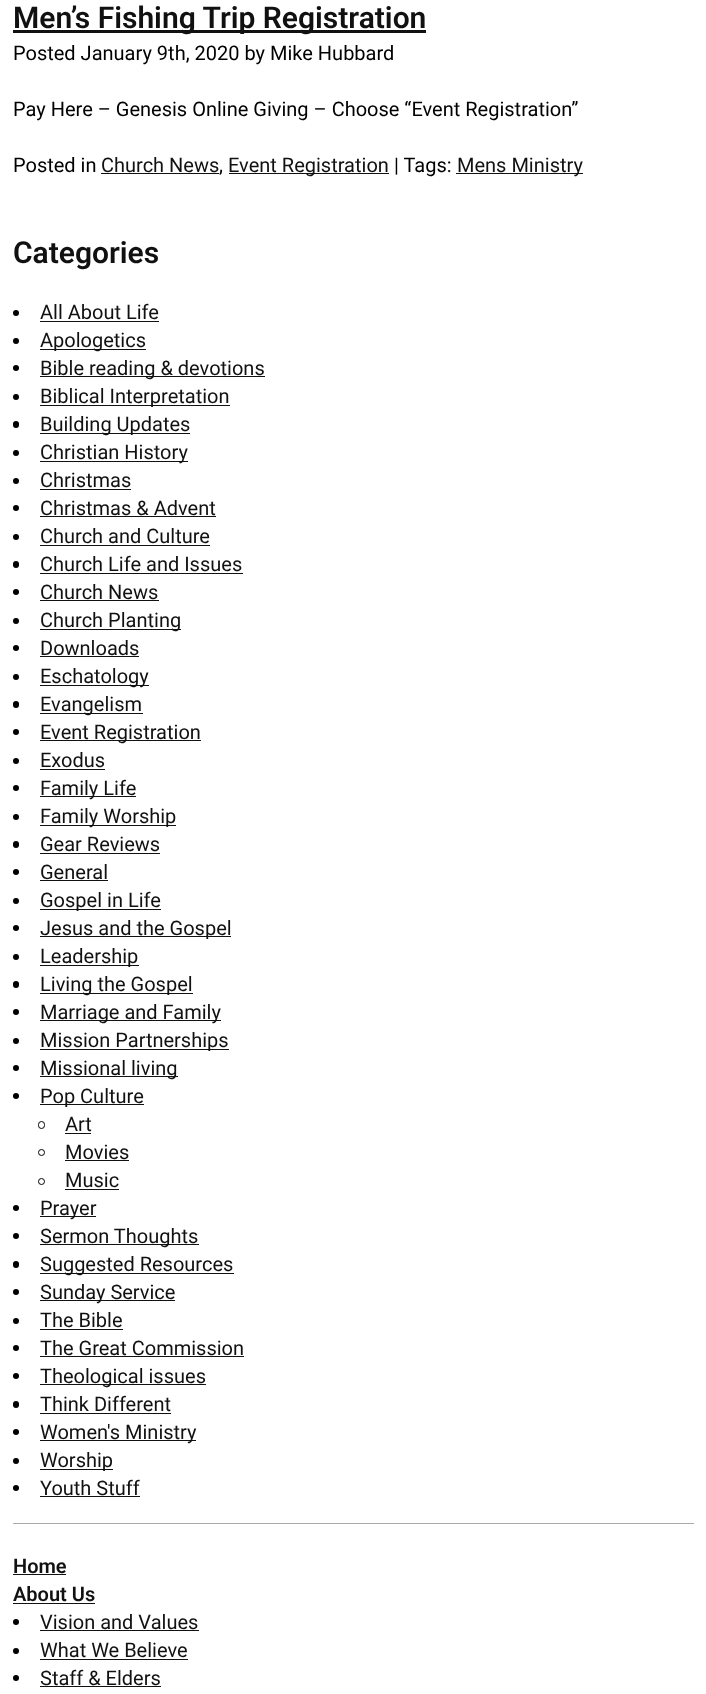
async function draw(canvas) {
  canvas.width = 706;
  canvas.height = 1694;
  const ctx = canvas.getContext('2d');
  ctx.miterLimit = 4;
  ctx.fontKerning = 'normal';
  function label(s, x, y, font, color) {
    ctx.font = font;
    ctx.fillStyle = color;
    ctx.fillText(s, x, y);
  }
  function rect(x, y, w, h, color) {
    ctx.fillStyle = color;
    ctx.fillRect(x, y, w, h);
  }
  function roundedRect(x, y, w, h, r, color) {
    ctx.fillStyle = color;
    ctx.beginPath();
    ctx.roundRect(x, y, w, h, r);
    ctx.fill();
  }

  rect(0, 0, 706, 1694, '#fff');
  rect(13, 30, 413, 3, '#111');
  label('Men’s Fishing Trip Registration', 13, 28, '600 30px Roboto', '#111');
  label('Posted January 9th, 2020 by Mike Hubbard', 13, 60, '20px Roboto', '#000');
  label('Pay Here – Genesis Online Giving – Choose “Event Registration”', 13, 116, '20px Roboto', '#000');
  label('Posted in', 13, 172, '20px Roboto', '#000');
  label('Church News', 101, 172, '20px Roboto', '#111');
  rect(101, 173, 118, 1, '#111');
  label(',', 219, 172, '20px Roboto', '#000');
  rect(229, 173, 160, 1, '#111');
  label('Event Registration', 228, 172, '20px Roboto', '#111');
  label('| Tags:', 394, 172, '20px Roboto', '#000');
  rect(456, 173, 127, 1, '#111');
  label('Mens Ministry', 457, 172, '20px Roboto', '#111');
  label('Categories', 13, 263, '600 30px Roboto', '#111');
  ctx.fillStyle = '#000';
  ctx.beginPath();
  ctx.arc(16, 313, 3, 0, 2 * Math.PI);
  ctx.fill();
  label('All About Life', 40, 319, '20px Roboto', '#111');
  rect(40, 321, 119, 1, '#111');
  ctx.fillStyle = '#000';
  ctx.beginPath();
  ctx.arc(16, 341, 3, 0, 2 * Math.PI);
  ctx.fill();
  rect(40, 349, 106, 1, '#111');
  label('Apologetics', 40, 347, '20px Roboto', '#111');
  ctx.fillStyle = '#000';
  ctx.beginPath();
  ctx.arc(16, 368, 3, 0, 2 * Math.PI);
  ctx.fill();
  rect(40, 376, 225, 1, '#111');
  label('Bible reading & devotions', 40, 375, '20px Roboto', '#111');
  ctx.fillStyle = '#000';
  ctx.beginPath();
  ctx.arc(16, 397, 3, 0, 2 * Math.PI);
  ctx.fill();
  rect(40, 405, 190, 1, '#111');
  label('Biblical Interpretation', 40, 403, '20px Roboto', '#111');
  roundedRect(13, 421, 6, 7, 3, '#000');
  rect(40, 433, 150, 1, '#111');
  label('Building Updates', 40, 431, '20px Roboto', '#111');
  ctx.fillStyle = '#000';
  ctx.beginPath();
  ctx.arc(16, 453, 3, 0, 2 * Math.PI);
  ctx.fill();
  rect(40, 461, 148, 1, '#111');
  label('Christian History', 40, 459, '20px Roboto', '#111');
  ctx.fillStyle = '#000';
  ctx.beginPath();
  ctx.arc(16, 481, 3, 0, 2 * Math.PI);
  ctx.fill();
  label('Christmas', 40, 487, '20px Roboto', '#111');
  rect(40, 489, 91, 1, '#111');
  ctx.fillStyle = '#000';
  ctx.beginPath();
  ctx.arc(16, 508, 3, 0, 2 * Math.PI);
  ctx.fill();
  label('Christmas & Advent', 40, 515, '20px Roboto', '#111');
  rect(40, 516, 176, 1, '#111');
  ctx.fillStyle = '#000';
  ctx.beginPath();
  ctx.arc(16, 537, 3, 0, 2 * Math.PI);
  ctx.fill();
  label('Church and Culture', 40, 543, '20px Roboto', '#111');
  rect(40, 545, 170, 1, '#111');
  roundedRect(13, 561, 6, 7, 3, '#000');
  label('Church Life and Issues', 40, 571, '20px Roboto', '#111');
  rect(40, 573, 203, 1, '#111');
  ctx.fillStyle = '#000';
  ctx.beginPath();
  ctx.arc(16, 592, 3, 0, 2 * Math.PI);
  ctx.fill();
  label('Church News', 40, 599, '20px Roboto', '#111');
  rect(40, 600, 119, 1, '#111');
  ctx.fillStyle = '#000';
  ctx.beginPath();
  ctx.arc(16, 621, 3, 0, 2 * Math.PI);
  ctx.fill();
  rect(40, 629, 141, 1, '#111');
  label('Church Planting', 40, 627, '20px Roboto', '#111');
  ctx.fillStyle = '#000';
  ctx.beginPath();
  ctx.arc(16, 648, 3, 0, 2 * Math.PI);
  ctx.fill();
  label('Downloads', 40, 655, '20px Roboto', '#111');
  rect(40, 656, 99, 1, '#111');
  ctx.fillStyle = '#000';
  ctx.beginPath();
  ctx.arc(16, 677, 3, 0, 2 * Math.PI);
  ctx.fill();
  rect(40, 685, 109, 1, '#111');
  label('Eschatology', 40, 683, '20px Roboto', '#111');
  roundedRect(13, 701, 6, 7, 3, '#000');
  rect(40, 713, 103, 1, '#111');
  label('Evangelism', 40, 711, '20px Roboto', '#111');
  ctx.fillStyle = '#000';
  ctx.beginPath();
  ctx.arc(16, 732, 3, 0, 2 * Math.PI);
  ctx.fill();
  rect(40, 740, 161, 1, '#111');
  label('Event Registration', 40, 739, '20px Roboto', '#111');
  ctx.fillStyle = '#000';
  ctx.beginPath();
  ctx.arc(16, 761, 3, 0, 2 * Math.PI);
  ctx.fill();
  label('Exodus', 40, 767, '20px Roboto', '#111');
  rect(40, 769, 65, 1, '#111');
  ctx.fillStyle = '#000';
  ctx.beginPath();
  ctx.arc(16, 788, 3, 0, 2 * Math.PI);
  ctx.fill();
  rect(40, 796, 96, 1, '#111');
  label('Family Life', 40, 795, '20px Roboto', '#111');
  ctx.fillStyle = '#000';
  ctx.beginPath();
  ctx.arc(16, 817, 3, 0, 2 * Math.PI);
  ctx.fill();
  rect(40, 825, 136, 1, '#111');
  label('Family Worship', 40, 823, '20px Roboto', '#111');
  roundedRect(13, 841, 6, 7, 3, '#000');
  label('Gear Reviews', 40, 851, '20px Roboto', '#111');
  rect(40, 853, 120, 1, '#111');
  ctx.fillStyle = '#000';
  ctx.beginPath();
  ctx.arc(16, 872, 3, 0, 2 * Math.PI);
  ctx.fill();
  label('General', 40, 879, '20px Roboto', '#111');
  rect(40, 880, 68, 1, '#111');
  ctx.fillStyle = '#000';
  ctx.beginPath();
  ctx.arc(16, 901, 3, 0, 2 * Math.PI);
  ctx.fill();
  rect(40, 909, 121, 1, '#111');
  label('Gospel in Life', 40, 907, '20px Roboto', '#111');
  ctx.fillStyle = '#000';
  ctx.beginPath();
  ctx.arc(16, 928, 3, 0, 2 * Math.PI);
  ctx.fill();
  rect(40, 936, 191, 1, '#111');
  label('Jesus and the Gospel', 40, 935, '20px Roboto', '#111');
  ctx.fillStyle = '#000';
  ctx.beginPath();
  ctx.arc(16, 957, 3, 0, 2 * Math.PI);
  ctx.fill();
  rect(40, 965, 99, 1, '#111');
  label('Leadership', 40, 963, '20px Roboto', '#111');
  roundedRect(13, 981, 6, 7, 3, '#000');
  rect(40, 993, 153, 1, '#111');
  label('Living the Gospel', 40, 991, '20px Roboto', '#111');
  ctx.fillStyle = '#000';
  ctx.beginPath();
  ctx.arc(16, 1012, 3, 0, 2 * Math.PI);
  ctx.fill();
  rect(40, 1020, 181, 1, '#111');
  label('Marriage and Family', 40, 1019, '20px Roboto', '#111');
  ctx.fillStyle = '#000';
  ctx.beginPath();
  ctx.arc(16, 1041, 3, 0, 2 * Math.PI);
  ctx.fill();
  rect(40, 1049, 189, 1, '#111');
  label('Mission Partnerships', 40, 1047, '20px Roboto', '#111');
  ctx.fillStyle = '#000';
  ctx.beginPath();
  ctx.arc(16, 1068, 3, 0, 2 * Math.PI);
  ctx.fill();
  rect(40, 1076, 138, 1, '#111');
  label('Missional living', 40, 1075, '20px Roboto', '#111');
  ctx.fillStyle = '#000';
  ctx.beginPath();
  ctx.arc(16, 1096, 3, 0, 2 * Math.PI);
  ctx.fill();
  rect(40, 1104, 104, 1, '#111');
  label('Pop Culture', 40, 1103, '20px Roboto', '#111');
  ctx.beginPath();
  ctx.roundRect(38.5, 1121.5, 6, 7, 3);
  ctx.strokeStyle = '#000';
  ctx.stroke();
  label('Art', 65, 1131, '20px Roboto', '#111');
  rect(65, 1133, 26, 1, '#111');
  ctx.beginPath();
  ctx.arc(41.5, 1152.5, 3, 0, 2 * Math.PI);
  ctx.stroke();
  label('Movies', 65, 1159, '20px Roboto', '#111');
  rect(65, 1160, 64, 1, '#111');
  ctx.beginPath();
  ctx.arc(41.5, 1181.5, 3, 0, 2 * Math.PI);
  ctx.stroke();
  label('Music', 65, 1187, '20px Roboto', '#111');
  rect(65, 1189, 54, 1, '#111');
  ctx.fillStyle = '#000';
  ctx.beginPath();
  ctx.arc(16, 1208, 3, 0, 2 * Math.PI);
  ctx.fill();
  rect(40, 1216, 56, 1, '#111');
  label('Prayer', 40, 1215, '20px Roboto', '#111');
  ctx.fillStyle = '#000';
  ctx.beginPath();
  ctx.arc(16, 1236, 3, 0, 2 * Math.PI);
  ctx.fill();
  rect(40, 1244, 159, 1, '#111');
  label('Sermon Thoughts', 40, 1243, '20px Roboto', '#111');
  roundedRect(13, 1261, 6, 7, 3, '#000');
  rect(40, 1273, 194, 1, '#111');
  label('Suggested Resources', 40, 1271, '20px Roboto', '#111');
  ctx.fillStyle = '#000';
  ctx.beginPath();
  ctx.arc(16, 1292, 3, 0, 2 * Math.PI);
  ctx.fill();
  rect(40, 1300, 135, 1, '#111');
  label('Sunday Service', 40, 1299, '20px Roboto', '#111');
  ctx.fillStyle = '#000';
  ctx.beginPath();
  ctx.arc(16, 1321, 3, 0, 2 * Math.PI);
  ctx.fill();
  label('The Bible', 40, 1327, '20px Roboto', '#111');
  rect(40, 1329, 83, 1, '#111');
  ctx.fillStyle = '#000';
  ctx.beginPath();
  ctx.arc(16, 1348, 3, 0, 2 * Math.PI);
  ctx.fill();
  label('The Great Commission', 40, 1355, '20px Roboto', '#111');
  rect(40, 1356, 204, 1, '#111');
  ctx.fillStyle = '#000';
  ctx.beginPath();
  ctx.arc(16, 1376, 3, 0, 2 * Math.PI);
  ctx.fill();
  rect(40, 1384, 166, 1, '#111');
  label('Theological issues', 40, 1383, '20px Roboto', '#111');
  roundedRect(13, 1401, 6, 7, 3, '#000');
  label('Think Different', 40, 1411, '20px Roboto', '#111');
  rect(40, 1413, 131, 1, '#111');
  ctx.fillStyle = '#000';
  ctx.beginPath();
  ctx.arc(16, 1432, 3, 0, 2 * Math.PI);
  ctx.fill();
  rect(40, 1440, 156, 1, '#111');
  label('Women\'s Ministry', 40, 1439, '20px Roboto', '#111');
  ctx.fillStyle = '#000';
  ctx.beginPath();
  ctx.arc(16, 1461, 3, 0, 2 * Math.PI);
  ctx.fill();
  rect(40, 1469, 73, 1, '#111');
  label('Worship', 40, 1467, '20px Roboto', '#111');
  ctx.fillStyle = '#000';
  ctx.beginPath();
  ctx.arc(16, 1488, 3, 0, 2 * Math.PI);
  ctx.fill();
  label('Youth Stuff', 40, 1495, '20px Roboto', '#111');
  rect(40, 1496, 100, 1, '#111');
  rect(13, 1523, 681, 1, '#aaa');
  label('Home', 13, 1573, '600 20px Roboto', '#111');
  rect(13, 1574, 53, 1, '#111');
  label('About Us', 13, 1601, '600 20px Roboto', '#111');
  rect(13, 1603, 82, 1, '#111');
  ctx.fillStyle = '#000';
  ctx.beginPath();
  ctx.arc(16, 1622, 3, 0, 2 * Math.PI);
  ctx.fill();
  label('Vision and Values', 40, 1629, '20px Roboto', '#111');
  rect(40, 1630, 159, 1, '#111');
  ctx.fillStyle = '#000';
  ctx.beginPath();
  ctx.arc(16, 1651, 3, 0, 2 * Math.PI);
  ctx.fill();
  label('What We Believe', 40, 1657, '20px Roboto', '#111');
  rect(40, 1659, 148, 1, '#111');
  ctx.fillStyle = '#000';
  ctx.beginPath();
  ctx.arc(16, 1678, 3, 0, 2 * Math.PI);
  ctx.fill();
  label('Staff & Elders', 40, 1685, '20px Roboto', '#111');
  rect(40, 1686, 121, 1, '#111');
}

draw(document.querySelector('canvas'));
